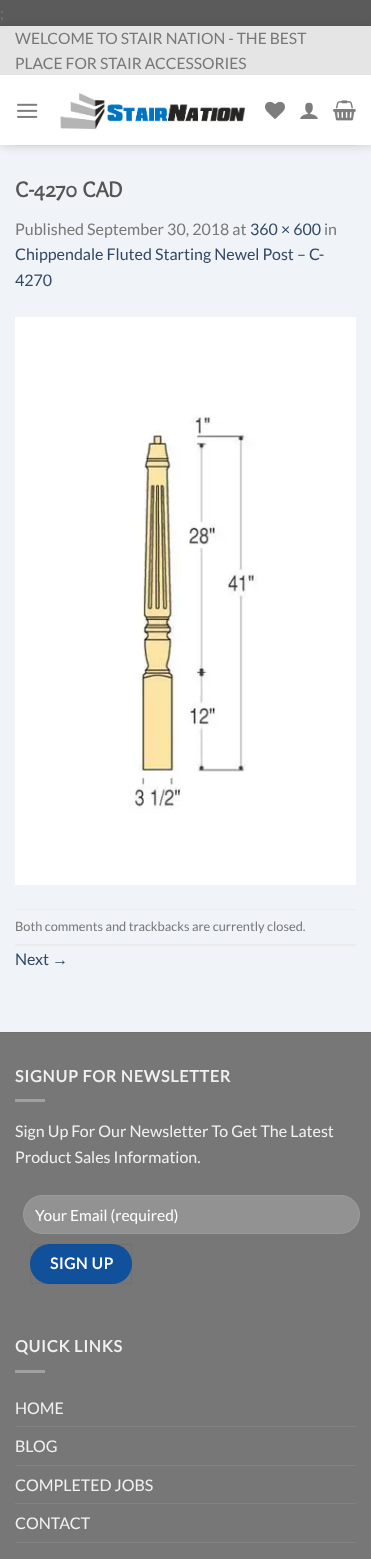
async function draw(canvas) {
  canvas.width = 371;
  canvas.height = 1559;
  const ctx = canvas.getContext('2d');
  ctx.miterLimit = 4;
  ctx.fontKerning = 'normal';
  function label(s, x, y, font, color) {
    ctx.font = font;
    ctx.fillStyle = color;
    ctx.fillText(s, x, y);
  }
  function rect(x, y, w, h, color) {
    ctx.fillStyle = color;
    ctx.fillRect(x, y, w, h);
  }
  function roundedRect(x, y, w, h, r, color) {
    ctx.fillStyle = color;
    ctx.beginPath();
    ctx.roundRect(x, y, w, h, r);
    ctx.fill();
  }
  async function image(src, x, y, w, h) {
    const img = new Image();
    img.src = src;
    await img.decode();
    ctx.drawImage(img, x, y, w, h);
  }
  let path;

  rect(0, 0, 371, 1559, '#5b5b5b');
  label(';', 0, 19, '16px Lato', '#777');
  rect(0, 75, 371, 70, '#fff');
  rect(0, 145, 371, 887, '#f0f4f9');
  ctx.save();
  path = new Path2D('M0 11H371V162H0ZM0 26H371V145H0Z');
  ctx.clip(path, 'evenodd');
  ctx.fillStyle = '#00000026';
  ctx.filter = 'blur(5px)';
  ctx.beginPath();
  ctx.rect(1, 27, 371, 119);
  ctx.fill();
  ctx.filter = 'none';
  ctx.restore();
  rect(0, 26, 371, 49, '#e5e5e5');
  label('WELCOME TO STAIR NATION - THE BEST', 15, 44, '15.6px Lato', '#777');
  label('PLACE FOR STAIR ACCESSORIES', 15, 69, '15.6px Lato', '#777');
  await image('assets/img1.png', 17, 103, 21, 15);
  await image('assets/img2.png', 60, 93, 186, 37);
  await image('assets/img3.png', 265, 101, 20, 18);
  await image('assets/img4.png', 300, 102, 18, 17);
  await image('assets/img5.png', 333, 100, 23, 21);
  rect(15, 145, 341, 1, '#d2d6da');
  label('C-4270 CAD', 15, 197, 'bold 22.5px Overlock SC', '#555');
  label('Published September 30, 2018 at', 15, 235, '16px Lato', '#777');
  label('360 × 600', 250, 235, '16px Lato', '#334862');
  label('in', 324, 235, '16px Lato', '#777');
  label('Chippendale Fluted Starting Newel Post – C-', 15, 260, '16px Lato', '#334862');
  label('4270', 15, 286, '16px Lato', '#334862');
  await image('assets/img6.png', 15, 317, 341, 568);
  rect(15, 909, 341, 1, '#ececec');
  rect(15, 944, 341, 2, '#ececec');
  label('Both comments and trackbacks are currently closed.', 15, 931, '12.8px Lato', '#777');
  label('Next', 15, 965, '16px Lato', '#334862');
  label('→', 52, 965, '16px Liberation Sans', '#334862');
  rect(0, 1033, 371, 526, '#777');
  rect(0, 1032, 371, 1, '#717171');
  ctx.letterSpacing = '0.8px';
  label('SIGNUP FOR NEWSLETTER', 15, 1082, 'bold 16px Lato', '#f1f1f1');
  rect(15, 1099, 30, 3, '#a0a0a0');
  ctx.letterSpacing = '0px';
  label('Sign Up For Our Newsletter To Get The Latest', 15, 1137, '16px Lato', '#f1f1f1');
  label('Product Sales Information.', 15, 1163, '16px Lato', '#f1f1f1');
  roundedRect(23, 1195, 337, 39, 19.5, '#929292');
  ctx.beginPath();
  ctx.roundRect(23.5, 1195.5, 336, 38, 19);
  ctx.strokeStyle = '#ffffff17';
  ctx.stroke();
  label('Your Email (required)', 35, 1221, '15.5px Lato', '#fff');
  roundedRect(30, 1244, 102, 40, 20, '#11519b');
  ctx.strokeStyle = '#0000000d';
  ctx.strokeRect(30.5, 1244.5, 101, 39);
  ctx.letterSpacing = '0.5px';
  label('SIGN UP', 50, 1269, 'bold 15.5px Lato', '#fff');
  ctx.letterSpacing = '0.8px';
  label('QUICK LINKS', 15, 1352, 'bold 16px Lato', '#f1f1f1');
  rect(15, 1370, 30, 3, '#a0a0a0');
  ctx.letterSpacing = '0px';
  label('HOME', 15, 1414, '16px Lato', '#f1f1f1');
  rect(15, 1426, 341, 1, '#828282');
  label('BLOG', 15, 1452, '16px Lato', '#f1f1f1');
  rect(15, 1465, 341, 1, '#828282');
  label('COMPLETED JOBS', 15, 1491, '16px Lato', '#f1f1f1');
  rect(15, 1503, 341, 1, '#828282');
  label('CONTACT', 15, 1529, '16px Lato', '#f1f1f1');
  rect(15, 1542, 341, 1, '#828282');
}

draw(document.querySelector('canvas'));
